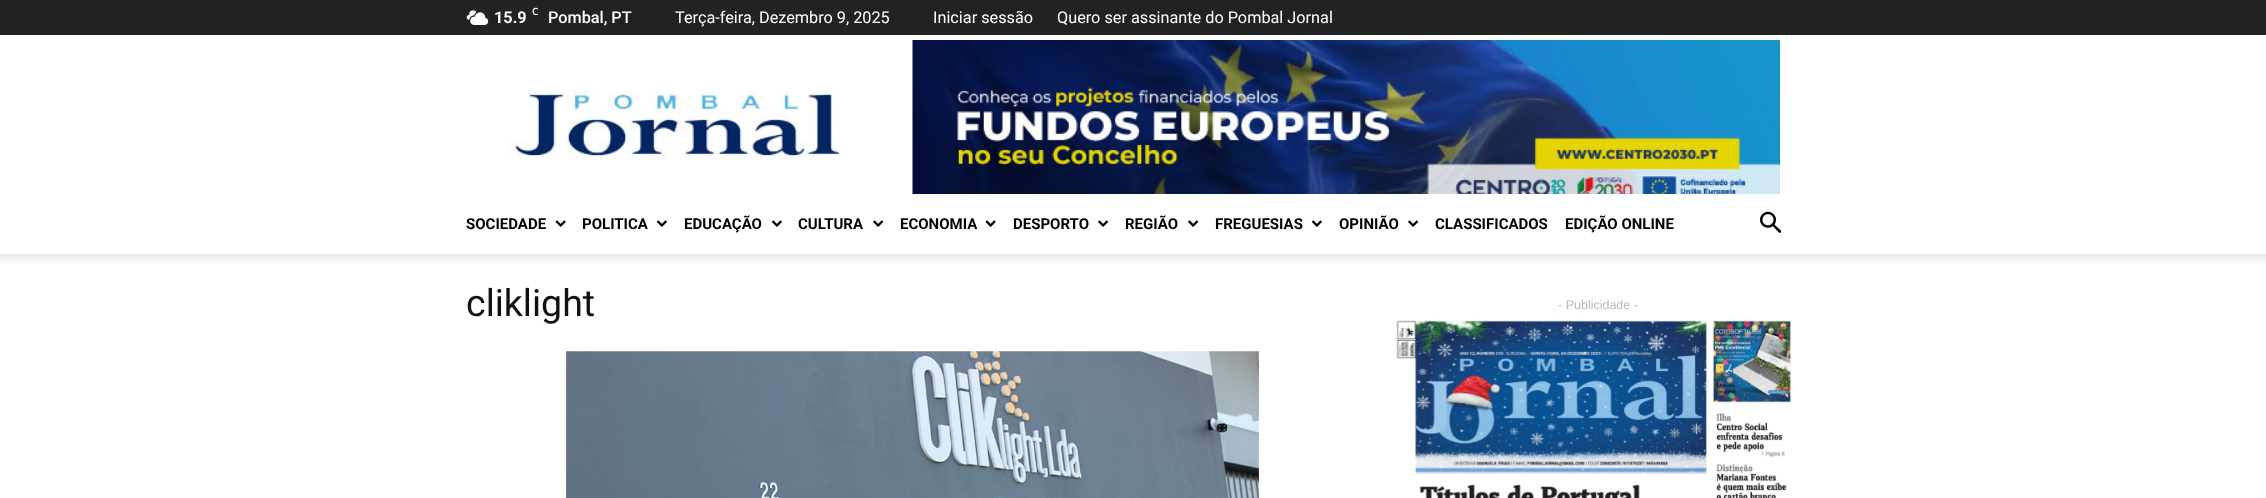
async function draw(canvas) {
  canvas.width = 2266;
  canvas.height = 498;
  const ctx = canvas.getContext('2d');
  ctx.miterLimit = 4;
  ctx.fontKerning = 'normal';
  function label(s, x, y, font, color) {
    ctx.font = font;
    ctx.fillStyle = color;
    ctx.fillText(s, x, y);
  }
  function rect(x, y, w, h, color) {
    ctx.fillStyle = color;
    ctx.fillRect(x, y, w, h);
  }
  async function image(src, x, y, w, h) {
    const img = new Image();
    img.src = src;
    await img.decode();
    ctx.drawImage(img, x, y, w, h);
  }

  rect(0, 0, 2266, 498, '#fff');
  rect(0, 0, 2266, 35, '#222');
  await image('assets/img1.png', 466, 10, 23, 15);
  label('15.9', 494, 23, 'bold 16.25px Roboto', '#fff');
  label('C', 532, 15, '600 10px Open Sans', '#fff');
  label('Pombal, PT', 548, 23, '500 16.25px Roboto', '#fff');
  label('Terça-feira, Dezembro 9, 2025', 675, 23, '16.25px Roboto', '#fff');
  label('Iniciar sessão', 933, 23, '16.25px Roboto', '#fff');
  label('Quero ser assinante do Pombal Jornal', 1057, 23, '16.25px Roboto', '#fff');
  await image('assets/img2.png', 509, 90, 330, 70);
  await image('assets/img3.png', 912, 40, 868, 154);
  label('SOCIEDADE', 466, 229, 'bold 15px Roboto', '#000');
  await image('assets/img4.png', 555, 220, 11, 7);
  label('POLITICA', 582, 229, 'bold 15px Roboto', '#000');
  await image('assets/img5.png', 656, 220, 11, 7);
  label('EDUCAÇÃO', 684, 229, 'bold 15px Roboto', '#000');
  await image('assets/img5.png', 771, 220, 11, 7);
  label('CULTURA', 798, 229, 'bold 15px Roboto', '#000');
  await image('assets/img6.png', 873, 220, 11, 7);
  label('ECONOMIA', 900, 229, 'bold 15px Roboto', '#000');
  await image('assets/img4.png', 985, 220, 11, 7);
  label('DESPORTO', 1013, 229, 'bold 15px Roboto', '#000');
  await image('assets/img6.png', 1098, 220, 11, 7);
  label('REGIÃO', 1125, 229, 'bold 15px Roboto', '#000');
  await image('assets/img6.png', 1188, 220, 11, 7);
  label('FREGUESIAS', 1215, 229, 'bold 15px Roboto', '#000');
  await image('assets/img5.png', 1311, 220, 11, 7);
  label('OPINIÃO', 1339, 229, 'bold 15px Roboto', '#000');
  await image('assets/img6.png', 1408, 220, 11, 7);
  label('CLASSIFICADOS', 1435, 229, 'bold 15px Roboto', '#000');
  label('EDIÇÃO ONLINE', 1565, 229, 'bold 15px Roboto', '#000');
  await image('assets/img7.png', 1760, 211, 22, 22);
  await image('assets/img8.png', 0, 254, 2266, 10);
  label('cliklight', 466, 316, '37.5px Roboto', '#111');
  await image('assets/img9.png', 566, 351, 693, 147);
  label('- Publicidade -', 1558, 309, '12.5px Liberation Sans', '#bbb');
  await image('assets/img10.png', 1396, 320, 395, 178);
}

draw(document.querySelector('canvas'));
